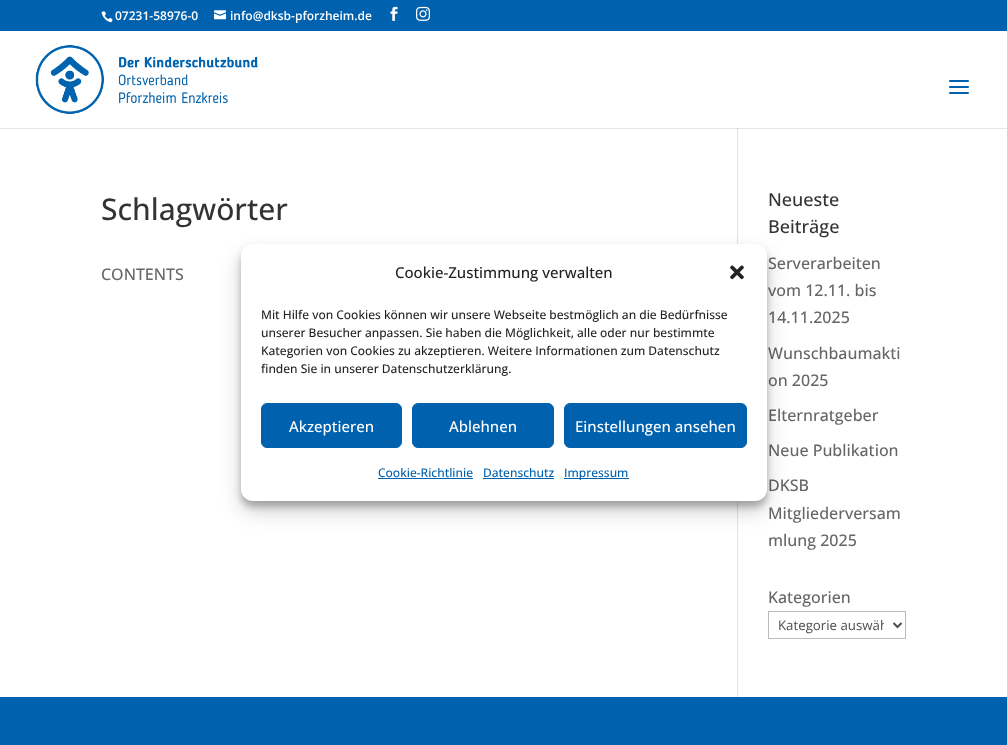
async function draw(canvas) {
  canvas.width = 1007;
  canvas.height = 745;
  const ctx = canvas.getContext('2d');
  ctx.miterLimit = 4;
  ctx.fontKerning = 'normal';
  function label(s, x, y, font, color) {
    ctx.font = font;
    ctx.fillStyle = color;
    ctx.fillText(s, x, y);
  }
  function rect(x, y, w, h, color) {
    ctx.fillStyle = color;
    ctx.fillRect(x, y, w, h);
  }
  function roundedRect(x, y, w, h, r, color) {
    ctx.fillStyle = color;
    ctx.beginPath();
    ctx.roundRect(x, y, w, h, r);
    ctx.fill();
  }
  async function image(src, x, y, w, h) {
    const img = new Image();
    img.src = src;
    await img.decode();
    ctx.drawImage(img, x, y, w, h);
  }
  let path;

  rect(0, 0, 1007, 745, '#fff');
  rect(0, 128, 1007, 1, '#e6e6e6');
  rect(0, 0, 1007, 31, '#0061ae');
  await image('assets/img1.png', 101, 11, 12, 12);
  label('07231-58976-0', 115, 20, '600 12px Open Sans', '#fff');
  await image('assets/img2.png', 214, 10, 12, 10);
  label('info@dksb-pforzheim.de', 230, 20, '600 12px Open Sans', '#fff');
  await image('assets/img3.png', 390, 6, 8, 15);
  await image('assets/img4.png', 416, 6, 14, 15);
  await image('assets/img5.png', 35, 45, 223, 69);
  await image('assets/img6.png', 949, 80, 20, 14);
  rect(737, 128, 1, 569, '#e2e2e2');
  rect(737, 128, 1, 1, '#cbcbcb');
  label('Schlagwörter', 101, 220, '500 30px Open Sans', '#333');
  label('CONTENTS', 101, 280, '500 16px Open Sans', '#666');
  label('Neueste', 768, 206, '500 18px Open Sans', '#333');
  label('Beiträge', 768, 233, '500 18px Open Sans', '#333');
  label('Serverarbeiten', 768, 269, '500 16px Open Sans', '#666');
  label('vom 12.11. bis', 768, 296, '500 16px Open Sans', '#666');
  label('14.11.2025', 768, 323, '500 16px Open Sans', '#666');
  label('Wunschbaumakti', 768, 359, '500 16px Open Sans', '#666');
  label('on 2025', 768, 386, '500 16px Open Sans', '#666');
  label('Elternratgeber', 768, 421, '500 16px Open Sans', '#666');
  label('Neue Publikation', 768, 456, '500 16px Open Sans', '#666');
  label('DKSB', 768, 491, '500 16px Open Sans', '#666');
  label('Mitgliederversam', 768, 519, '500 16px Open Sans', '#666');
  label('mlung 2025', 768, 546, '500 16px Open Sans', '#666');
  label('Kategorien', 768, 603, '500 16px Open Sans', '#666');
  ctx.strokeStyle = '#bbb';
  ctx.strokeRect(768.5, 611.5, 137, 27);
  path = new Path2D('M893.5 623L897.5 627L901.5 623');
  ctx.strokeStyle = '#4e4e4e';
  ctx.lineWidth = 2;
  ctx.stroke(path);
  ctx.save();
  ctx.beginPath();
  ctx.rect(778, 615, 106, 20);
  ctx.clip();
  label('Kategorie auswäh', 778, 630, '13.25px Open Sans', '#4e4e4e');
  ctx.restore();
  rect(0, 697, 1007, 48, '#0061ae');
  ctx.fillStyle = '#0000003b';
  ctx.filter = 'blur(3px)';
  ctx.beginPath();
  ctx.roundRect(241, 250, 526, 257, 12);
  ctx.fill();
  ctx.filter = 'none';
  ctx.fillStyle = '#00000030';
  ctx.filter = 'blur(10px)';
  ctx.beginPath();
  ctx.roundRect(241, 254, 526, 257, 12);
  ctx.fill();
  ctx.filter = 'none';
  roundedRect(241, 244, 526, 257, 12, '#fff');
  label('Cookie-Zustimmung verwalten', 395, 278, '500 15px Open Sans', '#222');
  await image('assets/img7.png', 730, 265, 14, 15);
  label('Mit Hilfe von Cookies können wir unsere Webseite bestmöglich an die Bedürfnisse', 261, 319, '500 12px Open Sans', '#222');
  label('unserer Besucher anpassen. Sie haben die Möglichkeit, alle oder nur bestimmte', 261, 337, '500 12px Open Sans', '#222');
  label('Kategorien von Cookies zu akzeptieren. Weitere Informationen zum Datenschutz', 261, 355, '500 12px Open Sans', '#222');
  label('finden Sie in unserer Datenschutzerklärung.', 261, 373, '500 12px Open Sans', '#222');
  ctx.fillStyle = '#0061ae';
  ctx.beginPath();
  ctx.roundRect(261.5, 403.5, 140, 44, 5.5);
  ctx.fill();
  ctx.strokeStyle = '#0061ae';
  ctx.lineWidth = 1;
  ctx.stroke();
  label('Akzeptieren', 289, 432, '500 15px Open Sans', '#fff');
  ctx.fillStyle = '#0061ae';
  ctx.beginPath();
  ctx.roundRect(412.5, 403.5, 141, 44, 5.5);
  ctx.fill();
  ctx.stroke();
  label('Ablehnen', 449, 432, '500 15px Open Sans', '#fff');
  ctx.fillStyle = '#0061ae';
  ctx.beginPath();
  ctx.roundRect(564.5, 403.5, 182, 44, 5.5);
  ctx.fill();
  ctx.stroke();
  label('Einstellungen ansehen', 575, 432, '500 15px Open Sans', '#fff');
  label('Cookie-Richtlinie', 378, 477, '500 12px Open Sans', '#0061ae');
  rect(378, 478, 95, 1, '#0061ae');
  label('Datenschutz', 483, 477, '500 12px Open Sans', '#0061ae');
  rect(483, 478, 71, 1, '#0061ae');
  rect(564, 478, 65, 1, '#0061ae');
  label('Impressum', 564, 477, '500 12px Open Sans', '#0061ae');
}

draw(document.querySelector('canvas'));
